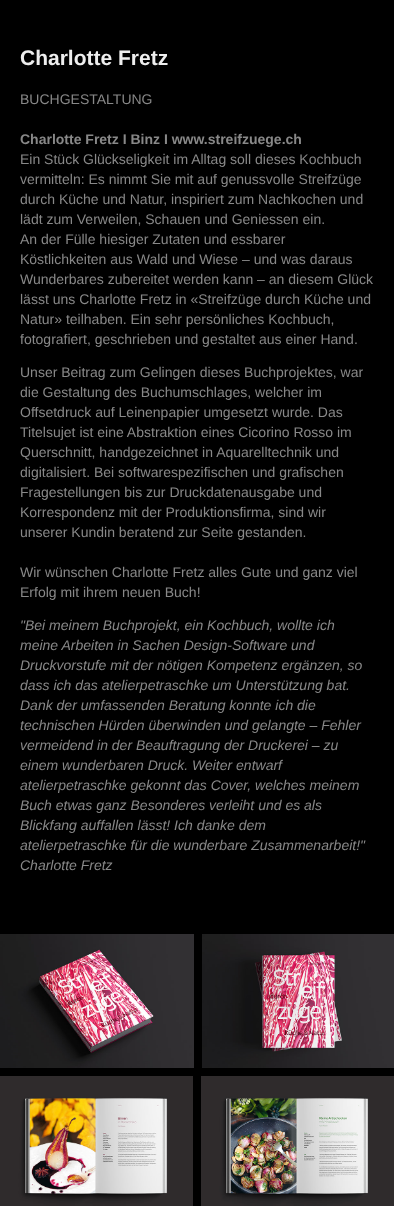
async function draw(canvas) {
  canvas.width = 394;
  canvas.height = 1206;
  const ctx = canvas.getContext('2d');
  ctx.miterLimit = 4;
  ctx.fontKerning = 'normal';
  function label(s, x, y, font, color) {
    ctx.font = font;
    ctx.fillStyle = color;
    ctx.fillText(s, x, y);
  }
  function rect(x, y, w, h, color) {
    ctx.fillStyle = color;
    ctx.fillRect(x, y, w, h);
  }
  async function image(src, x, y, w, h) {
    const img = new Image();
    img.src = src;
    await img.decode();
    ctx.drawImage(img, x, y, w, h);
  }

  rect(0, 0, 394, 1206, '#000');
  label('Charlotte Fretz', 20, 65, 'bold 21px Liberation Sans', '#eee');
  label('BUCHGESTALTUNG', 20, 104, '14px Liberation Sans', '#888');
  label('Charlotte Fretz I Binz I www.streifzuege.ch', 20, 144, 'bold 14px Liberation Sans', '#888');
  label('Ein Stück Glückseligkeit im Alltag soll dieses Kochbuch', 20, 164, '14px Liberation Sans', '#888');
  label('vermitteln: Es nimmt Sie mit auf genussvolle Streifzüge', 20, 184, '14px Liberation Sans', '#888');
  label('durch Küche und Natur, inspiriert zum Nachkochen und', 20, 204, '14px Liberation Sans', '#888');
  label('lädt zum Verweilen, Schauen und Geniessen ein.', 20, 224, '14px Liberation Sans', '#888');
  label('An der Fülle hiesiger Zutaten und essbarer', 20, 244, '14px Liberation Sans', '#888');
  label('Köstlichkeiten aus Wald und Wiese – und was daraus', 20, 264, '14px Liberation Sans', '#888');
  label('Wunderbares zubereitet werden kann – an diesem Glück', 20, 284, '14px Liberation Sans', '#888');
  label('lässt uns Charlotte Fretz in «Streifzüge durch Küche und', 20, 304, '14px Liberation Sans', '#888');
  label('Natur» teilhaben. Ein sehr persönliches Kochbuch,', 20, 324, '14px Liberation Sans', '#888');
  label('fotografiert, geschrieben und gestaltet aus einer Hand.', 20, 344, '14px Liberation Sans', '#888');
  label('Unser Beitrag zum Gelingen dieses Buchprojektes, war', 20, 377, '14px Liberation Sans', '#888');
  label('die Gestaltung des Buchumschlages, welcher im', 20, 397, '14px Liberation Sans', '#888');
  label('Offsetdruck auf Leinenpapier umgesetzt wurde. Das', 20, 417, '14px Liberation Sans', '#888');
  label('Titelsujet ist eine Abstraktion eines Cicorino Rosso im', 20, 437, '14px Liberation Sans', '#888');
  label('Querschnitt, handgezeichnet in Aquarelltechnik und', 20, 457, '14px Liberation Sans', '#888');
  label('digitalisiert. Bei softwarespezifischen und grafischen', 20, 477, '14px Liberation Sans', '#888');
  label('Fragestellungen bis zur Druckdatenausgabe und', 20, 497, '14px Liberation Sans', '#888');
  label('Korrespondenz mit der Produktionsfirma, sind wir', 20, 517, '14px Liberation Sans', '#888');
  label('unserer Kundin beratend zur Seite gestanden.', 20, 537, '14px Liberation Sans', '#888');
  label('Wir wünschen Charlotte Fretz alles Gute und ganz viel', 20, 577, '14px Liberation Sans', '#888');
  label('Erfolg mit ihrem neuen Buch!', 20, 597, '14px Liberation Sans', '#888');
  label('"Bei meinem Buchprojekt, ein Kochbuch, wollte ich', 20, 630, 'italic 14px Liberation Sans', '#888');
  label('meine Arbeiten in Sachen Design-Software und', 20, 650, 'italic 14px Liberation Sans', '#888');
  label('Druckvorstufe mit der nötigen Kompetenz ergänzen, so', 20, 670, 'italic 14px Liberation Sans', '#888');
  label('dass ich das atelierpetraschke um Unterstützung bat.', 20, 690, 'italic 14px Liberation Sans', '#888');
  label('Dank der umfassenden Beratung konnte ich die', 20, 710, 'italic 14px Liberation Sans', '#888');
  label('technischen Hürden überwinden und gelangte – Fehler', 20, 730, 'italic 14px Liberation Sans', '#888');
  label('vermeidend in der Beauftragung der Druckerei – zu', 20, 750, 'italic 14px Liberation Sans', '#888');
  label('einem wunderbaren Druck. Weiter entwarf', 20, 770, 'italic 14px Liberation Sans', '#888');
  label('atelierpetraschke gekonnt das Cover, welches meinem', 20, 790, 'italic 14px Liberation Sans', '#888');
  label('Buch etwas ganz Besonderes verleiht und es als', 20, 810, 'italic 14px Liberation Sans', '#888');
  label('Blickfang auffallen lässt! Ich danke dem', 20, 830, 'italic 14px Liberation Sans', '#888');
  label('atelierpetraschke für die wunderbare Zusammenarbeit!"', 20, 850, 'italic 14px Liberation Sans', '#888');
  label('Charlotte Fretz', 20, 870, 'italic 14px Liberation Sans', '#888');
  await image('assets/img1.png', 0, 934, 194, 134);
  await image('assets/img2.png', 202, 934, 192, 134);
  await image('assets/img3.png', 0, 1076, 193, 130);
  await image('assets/img4.png', 201, 1076, 193, 130);
}

draw(document.querySelector('canvas'));
